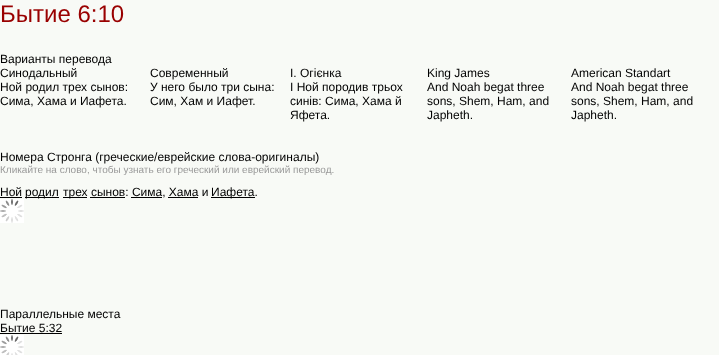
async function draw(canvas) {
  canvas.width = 719;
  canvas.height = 355;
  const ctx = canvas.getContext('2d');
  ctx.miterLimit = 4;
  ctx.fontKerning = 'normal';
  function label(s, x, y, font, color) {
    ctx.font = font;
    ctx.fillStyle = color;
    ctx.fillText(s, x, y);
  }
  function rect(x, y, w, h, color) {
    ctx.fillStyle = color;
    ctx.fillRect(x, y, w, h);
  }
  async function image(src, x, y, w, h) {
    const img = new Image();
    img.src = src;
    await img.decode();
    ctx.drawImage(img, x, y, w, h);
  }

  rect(0, 0, 719, 355, '#f8faf6');
  label('Бытие 6:10', 0, 22, '24px Liberation Sans', '#900');
  label('Варианты перевода', 0, 63, '12px Liberation Sans', '#000');
  label('Синодальный', 0, 77, '12px Liberation Sans', '#000');
  label('Ной родил трех сынов:', 0, 91, '12px Liberation Sans', '#000');
  label('Сима, Хама и Иафета.', 0, 105, '12px Liberation Sans', '#000');
  label('Современный', 150, 77, '12px Liberation Sans', '#000');
  label('У него было три сына:', 150, 91, '12px Liberation Sans', '#000');
  label('Сим, Хам и Иафет.', 150, 105, '12px Liberation Sans', '#000');
  label('I. Oгієнка', 290, 77, '12px Liberation Sans', '#000');
  label('І Ной породив трьох', 290, 91, '12px Liberation Sans', '#000');
  label('синів: Сима, Хама й', 290, 105, '12px Liberation Sans', '#000');
  label('Яфета.', 290, 119, '12px Liberation Sans', '#000');
  label('King James', 427, 77, '12px Liberation Sans', '#000');
  label('And Noah begat three', 427, 91, '12px Liberation Sans', '#000');
  label('sons, Shem, Ham, and', 427, 105, '12px Liberation Sans', '#000');
  label('Japheth.', 427, 119, '12px Liberation Sans', '#000');
  label('American Standart', 571, 77, '12px Liberation Sans', '#000');
  label('And Noah begat three', 571, 91, '12px Liberation Sans', '#000');
  label('sons, Shem, Ham, and', 571, 105, '12px Liberation Sans', '#000');
  label('Japheth.', 571, 119, '12px Liberation Sans', '#000');
  label('Номера Стронга (греческие/еврейские слова-оригиналы)', 0, 161, '12px Liberation Sans', '#000');
  label('Кликайте на слово, чтобы узнать его греческий или еврейский перевод.', 0, 173, '10px Liberation Sans', '#999');
  label('Ной', 0, 196, '12px Liberation Sans', '#000');
  rect(0, 197, 22, 1, '#000');
  rect(25, 197, 34, 1, '#000');
  label('родил', 25, 196, '12px Liberation Sans', '#000');
  rect(63, 197, 24, 1, '#000');
  label('трех сынов: Сима, Хама и', 63, 196, '12px Liberation Sans', '#000');
  rect(211, 197, 44, 1, '#000');
  label('Иафета.', 211, 196, '12px Liberation Sans', '#000');
  rect(90, 197, 35, 1, '#000');
  rect(131, 197, 31, 1, '#000');
  rect(168, 197, 30, 1, '#000');
  await image('assets/img1.png', 0, 199, 24, 24);
  label('Параллельные места', 0, 318, '12px Liberation Sans', '#000');
  label('Бытие 5:32', 0, 332, '12px Liberation Sans', '#000');
  rect(0, 333, 62, 1, '#000');
  await image('assets/img2.png', 0, 335, 24, 20);
}

draw(document.querySelector('canvas'));
